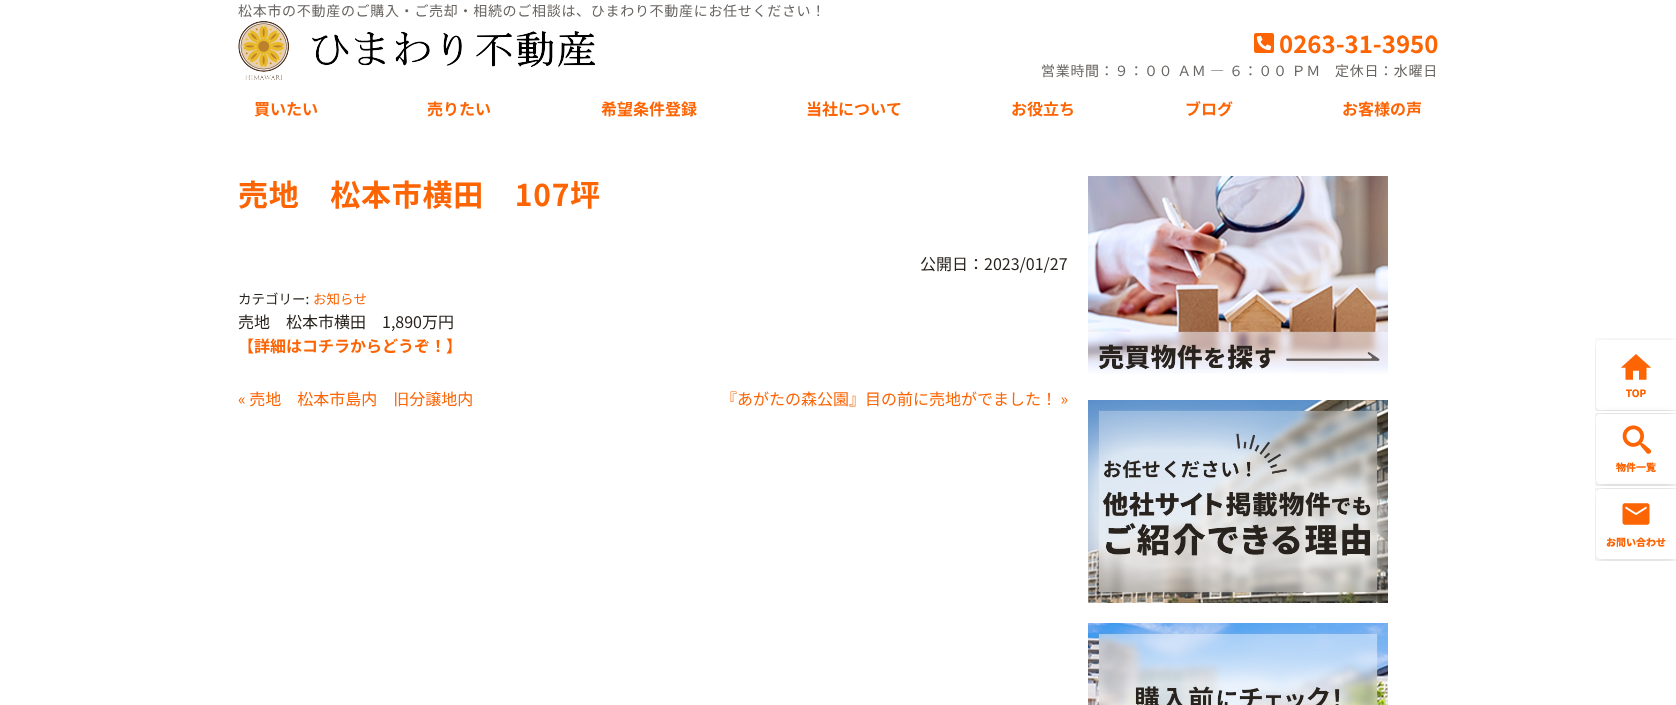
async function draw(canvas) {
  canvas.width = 1676;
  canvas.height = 705;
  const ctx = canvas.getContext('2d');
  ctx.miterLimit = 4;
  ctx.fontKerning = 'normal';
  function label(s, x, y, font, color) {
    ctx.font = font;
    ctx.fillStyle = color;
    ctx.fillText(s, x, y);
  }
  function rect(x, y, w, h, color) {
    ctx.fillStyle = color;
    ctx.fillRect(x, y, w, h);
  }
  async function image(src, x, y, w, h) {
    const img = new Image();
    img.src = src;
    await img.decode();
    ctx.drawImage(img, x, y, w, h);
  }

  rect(0, 0, 1676, 705, '#fff');
  ctx.letterSpacing = '0.7px';
  label('松本市の不動産のご購入・ご売却・相続のご相談は、ひまわり不動産にお任せください！', 238, 16, '14px Noto Sans JP', '#686461');
  await image('assets/img1.png', 238, 21, 358, 59);
  await image('assets/img2.png', 1254, 33, 20, 20);
  ctx.letterSpacing = '0px';
  label('0263-31-3950', 1279, 53, 'bold 24px Noto Sans JP', '#fc6404');
  ctx.letterSpacing = '0.7px';
  label('営業時間：９：００ ＡＭ ― ６：００ ＰＭ', 1041, 76, '14px Noto Sans JP', '#686461');
  label('定休日：水曜日', 1335, 76, '14px Noto Sans JP', '#686461');
  ctx.letterSpacing = '0px';
  label('買いたい', 254, 115, 'bold 16px Noto Sans JP', '#fc6404');
  label('売りたい', 427, 115, 'bold 16px Noto Sans JP', '#fc6404');
  label('希望条件登録', 601, 115, 'bold 16px Noto Sans JP', '#fc6404');
  label('当社について', 806, 115, 'bold 16px Noto Sans JP', '#fc6404');
  label('お役立ち', 1011, 115, 'bold 16px Noto Sans JP', '#fc6404');
  label('ブログ', 1185, 115, 'bold 16px Noto Sans JP', '#fc6404');
  label('お客様の声', 1342, 115, 'bold 16px Noto Sans JP', '#fc6404');
  ctx.letterSpacing = '0.75px';
  label('売地　松本市横田　107坪', 238, 206, 'bold 30px Noto Sans JP', '#fc6404');
  ctx.letterSpacing = '0px';
  label('公開日：2023/01/27', 920, 270, '16px Noto Sans JP', '#29231e');
  label('カテゴリー:', 238, 304, '13.5px Noto Sans JP', '#29231e');
  label('お知らせ', 313, 304, '13.5px Noto Sans JP', '#fc6404');
  label('売地　松本市横田　1,890万円', 238, 328, '16px Noto Sans JP', '#29231e');
  label('【詳細はコチラからどうぞ！】', 238, 352, 'bold 16px Noto Sans JP', '#fc6404');
  label('« 売地　松本市島内　旧分譲地内', 238, 405, '16px Noto Sans JP', '#fc6404');
  label('『あがたの森公園』目の前に売地がでました！ »', 721, 405, '16px Noto Sans JP', '#fc6404');
  await image('assets/img3.png', 1088, 176, 300, 198);
  await image('assets/img4.png', 1088, 400, 300, 203);
  await image('assets/img5.png', 1088, 623, 300, 82);
  await image('assets/img6.png', 1595, 338, 81, 73);
  await image('assets/img7.png', 1595, 413, 81, 73);
  await image('assets/img8.png', 1595, 488, 81, 73);
}

draw(document.querySelector('canvas'));
